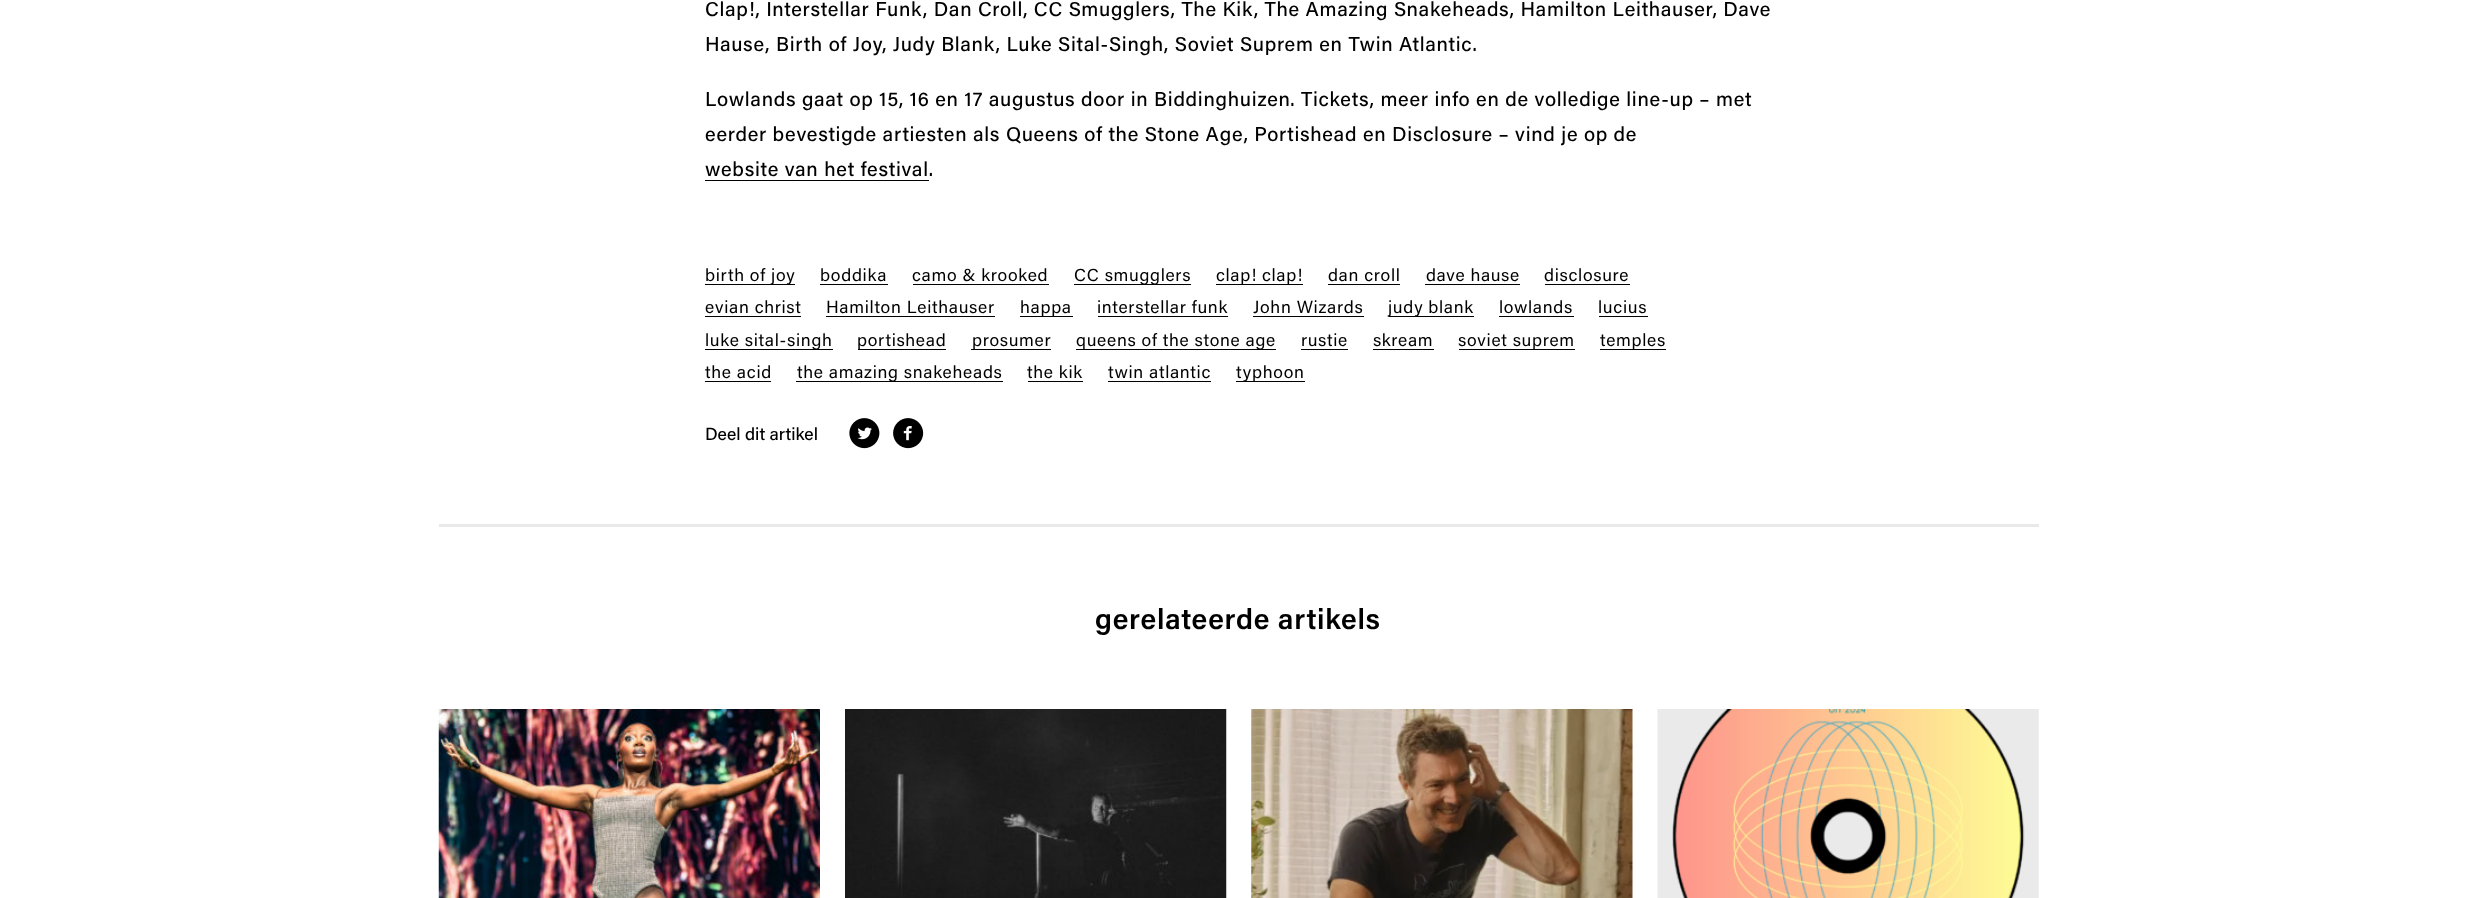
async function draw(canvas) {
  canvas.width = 2476;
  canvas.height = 898;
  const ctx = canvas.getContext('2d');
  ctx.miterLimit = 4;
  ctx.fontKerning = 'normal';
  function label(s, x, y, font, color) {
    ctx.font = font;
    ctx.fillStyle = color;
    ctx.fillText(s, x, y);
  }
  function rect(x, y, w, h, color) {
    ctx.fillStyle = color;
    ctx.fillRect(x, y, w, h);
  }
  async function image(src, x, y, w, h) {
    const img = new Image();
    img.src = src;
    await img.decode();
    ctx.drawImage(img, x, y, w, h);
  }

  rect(0, 0, 2476, 898, '#fff');
  ctx.letterSpacing = '0.7px';
  label('Clap!, Interstellar Funk, Dan Croll, CC Smugglers, The Kik, The Amazing Snakeheads, Hamilton Leithauser, Dave', 705, 16, '500 20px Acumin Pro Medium', '#000');
  label('Hause, Birth of Joy, Judy Blank, Luke Sital-Singh, Soviet Suprem en Twin Atlantic.', 705, 51, '500 20px Acumin Pro Medium', '#000');
  label('Lowlands gaat op 15, 16 en 17 augustus door in Biddinghuizen. Tickets, meer info en de volledige line-up – met', 705, 106, '500 20px Acumin Pro Medium', '#000');
  label('eerder bevestigde artiesten als Queens of the Stone Age, Portishead en Disclosure – vind je op de', 705, 141, '500 20px Acumin Pro Medium', '#000');
  rect(705, 180, 224, 1, '#000');
  label('website van het festival.', 705, 176, '500 20px Acumin Pro Medium', '#000');
  rect(705, 284, 90, 1, '#000');
  label('birth of joy', 705, 281, '17.5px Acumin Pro', '#000');
  rect(820, 284, 68, 1, '#000');
  label('boddika', 820, 281, '17.5px Acumin Pro', '#000');
  rect(913, 284, 136, 1, '#000');
  label('camo & krooked', 912, 281, '17.5px Acumin Pro', '#000');
  rect(1074, 284, 117, 1, '#000');
  label('CC smugglers', 1074, 281, '17.5px Acumin Pro', '#000');
  rect(1216, 284, 87, 1, '#000');
  label('clap! clap!', 1216, 281, '17.5px Acumin Pro', '#000');
  rect(1328, 284, 72, 1, '#000');
  label('dan croll', 1328, 281, '17.5px Acumin Pro', '#000');
  rect(1425, 284, 95, 1, '#000');
  label('dave hause', 1426, 281, '17.5px Acumin Pro', '#000');
  rect(1545, 284, 85, 1, '#000');
  label('disclosure', 1544, 281, '17.5px Acumin Pro', '#000');
  rect(705, 316, 96, 1, '#000');
  label('evian christ', 705, 313, '17.5px Acumin Pro', '#000');
  rect(826, 316, 169, 1, '#000');
  label('Hamilton Leithauser', 826, 313, '17.5px Acumin Pro', '#000');
  rect(1020, 316, 53, 1, '#000');
  label('happa', 1020, 313, '17.5px Acumin Pro', '#000');
  rect(1098, 316, 130, 1, '#000');
  label('interstellar funk', 1097, 313, '17.5px Acumin Pro', '#000');
  rect(1253, 316, 111, 1, '#000');
  label('John Wizards', 1253, 313, '17.5px Acumin Pro', '#000');
  rect(1389, 316, 85, 1, '#000');
  label('judy blank', 1388, 313, '17.5px Acumin Pro', '#000');
  rect(1499, 316, 75, 1, '#000');
  label('lowlands', 1499, 313, '17.5px Acumin Pro', '#000');
  rect(1599, 316, 49, 1, '#000');
  label('lucius', 1598, 313, '17.5px Acumin Pro', '#000');
  rect(705, 349, 128, 1, '#000');
  label('luke sital-singh', 705, 346, '17.5px Acumin Pro', '#000');
  rect(858, 349, 88, 1, '#000');
  label('portishead', 857, 346, '17.5px Acumin Pro', '#000');
  rect(971, 349, 80, 1, '#000');
  label('prosumer', 972, 346, '17.5px Acumin Pro', '#000');
  rect(1076, 349, 200, 1, '#000');
  label('queens of the stone age', 1076, 346, '17.5px Acumin Pro', '#000');
  rect(1301, 349, 47, 1, '#000');
  label('rustie', 1301, 346, '17.5px Acumin Pro', '#000');
  rect(1373, 349, 61, 1, '#000');
  label('skream', 1373, 346, '17.5px Acumin Pro', '#000');
  rect(1459, 349, 116, 1, '#000');
  label('soviet suprem', 1458, 346, '17.5px Acumin Pro', '#000');
  rect(1600, 349, 66, 1, '#000');
  label('temples', 1600, 346, '17.5px Acumin Pro', '#000');
  rect(705, 381, 66, 1, '#000');
  label('the acid', 705, 378, '17.5px Acumin Pro', '#000');
  rect(796, 381, 207, 1, '#000');
  label('the amazing snakeheads', 797, 378, '17.5px Acumin Pro', '#000');
  rect(1028, 381, 55, 1, '#000');
  label('the kik', 1027, 378, '17.5px Acumin Pro', '#000');
  rect(1108, 381, 103, 1, '#000');
  label('twin atlantic', 1108, 378, '17.5px Acumin Pro', '#000');
  rect(1236, 381, 69, 1, '#000');
  label('typhoon', 1236, 378, '17.5px Acumin Pro', '#000');
  ctx.letterSpacing = '0px';
  label('Deel dit artikel', 705, 440, '500 17.5px Acumin Pro Medium', '#000');
  await image('assets/img1.png', 849, 418, 31, 31);
  await image('assets/img2.png', 893, 418, 31, 31);
  rect(439, 524, 1600, 3, '#e9e9e9');
  ctx.letterSpacing = '0.7px';
  label('gerelateerde artikels', 1095, 629, '600 28.75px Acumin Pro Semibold', '#000');
  await image('assets/img3.png', 438, 709, 382, 189);
  await image('assets/img4.png', 845, 709, 382, 189);
  await image('assets/img5.png', 1251, 709, 382, 189);
  await image('assets/img6.png', 1657, 709, 382, 189);
}

draw(document.querySelector('canvas'));
